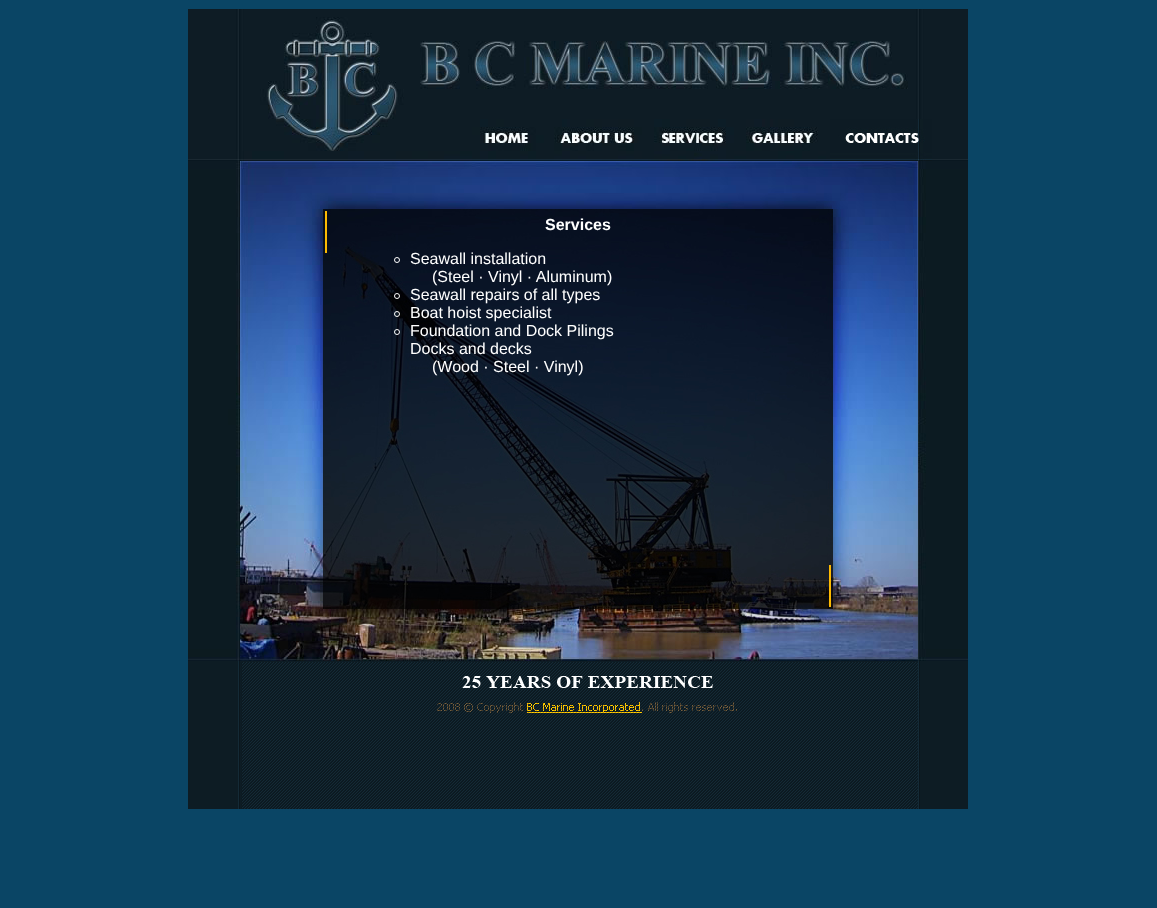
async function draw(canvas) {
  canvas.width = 1157;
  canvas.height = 908;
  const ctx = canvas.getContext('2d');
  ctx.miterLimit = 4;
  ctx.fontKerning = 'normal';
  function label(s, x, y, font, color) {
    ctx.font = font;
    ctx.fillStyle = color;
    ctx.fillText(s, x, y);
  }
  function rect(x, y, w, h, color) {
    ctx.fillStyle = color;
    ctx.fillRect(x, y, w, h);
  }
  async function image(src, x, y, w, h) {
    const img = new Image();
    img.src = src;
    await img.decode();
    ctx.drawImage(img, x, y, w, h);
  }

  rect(0, 0, 1157, 908, '#0a4565');
  await image('assets/img1.png', 188, 9, 780, 110);
  await image('assets/img2.png', 188, 119, 284, 42);
  await image('assets/img3.png', 472, 119, 74, 42);
  await image('assets/img4.png', 546, 119, 100, 42);
  await image('assets/img5.png', 646, 119, 92, 42);
  await image('assets/img6.png', 738, 119, 92, 42);
  await image('assets/img7.png', 830, 119, 102, 42);
  await image('assets/img8.png', 932, 119, 36, 42);
  await image('assets/img9.png', 188, 161, 52, 500);
  await image('assets/img10.png', 240, 161, 678, 48);
  await image('assets/img11.png', 918, 161, 50, 500);
  await image('assets/img12.png', 240, 209, 83, 452);
  await image('assets/img13.png', 323, 209, 510, 400);
  label('Services', 545, 230, 'bold 16px Liberation Sans', '#fff');
  ctx.beginPath();
  ctx.arc(397, 260, 2.5, 0, 2 * Math.PI);
  ctx.strokeStyle = '#fff';
  ctx.stroke();
  label('Seawall installation', 410, 264, '16px Liberation Sans', '#fff');
  label('(Steel · Vinyl · Aluminum)', 432, 282, '16px Liberation Sans', '#fff');
  ctx.beginPath();
  ctx.arc(397, 296, 2.5, 0, 2 * Math.PI);
  ctx.stroke();
  label('Seawall repairs of all types', 410, 300, '16px Liberation Sans', '#fff');
  ctx.beginPath();
  ctx.arc(397, 314, 2.5, 0, 2 * Math.PI);
  ctx.stroke();
  label('Boat hoist specialist', 410, 318, '16px Liberation Sans', '#fff');
  ctx.beginPath();
  ctx.arc(397, 332, 2.5, 0, 2 * Math.PI);
  ctx.stroke();
  label('Foundation and Dock Pilings', 410, 336, '16px Liberation Sans', '#fff');
  label('Docks and decks', 410, 354, '16px Liberation Sans', '#fff');
  label('(Wood · Steel · Vinyl)', 432, 372, '16px Liberation Sans', '#fff');
  await image('assets/img14.png', 833, 209, 85, 452);
  await image('assets/img15.png', 323, 609, 510, 52);
  await image('assets/img16.png', 188, 661, 780, 148);
}

draw(document.querySelector('canvas'));
